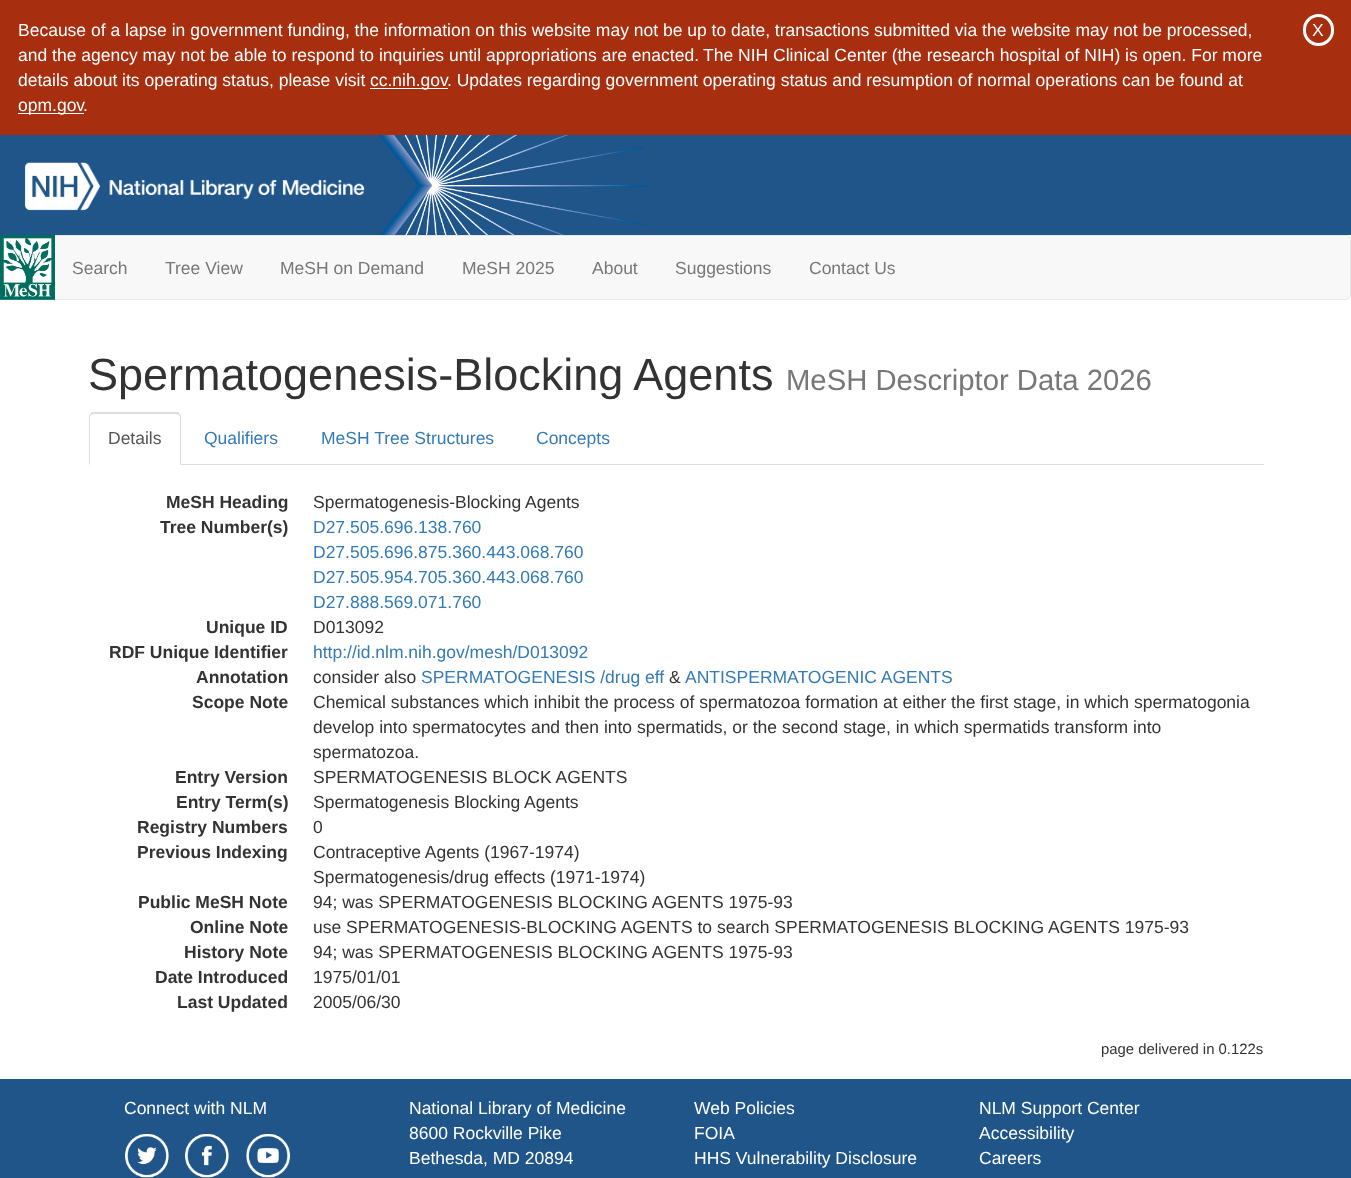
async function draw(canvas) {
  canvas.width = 1351;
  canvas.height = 1178;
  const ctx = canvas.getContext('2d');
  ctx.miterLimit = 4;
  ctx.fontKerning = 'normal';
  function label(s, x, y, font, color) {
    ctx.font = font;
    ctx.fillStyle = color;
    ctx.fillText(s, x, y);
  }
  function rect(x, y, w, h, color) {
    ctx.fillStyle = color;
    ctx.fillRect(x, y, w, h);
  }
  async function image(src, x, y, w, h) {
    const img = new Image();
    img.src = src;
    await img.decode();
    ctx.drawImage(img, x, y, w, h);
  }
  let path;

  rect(0, 0, 1351, 1178, '#fff');
  rect(0, 0, 1351, 135, '#a72f10');
  label('Because of a lapse in government funding, the information on this website may not be up to date, transactions submitted via the website may not be processed,', 18, 36, '17.5px Liberation Sans', '#fff');
  label('and the agency may not be able to respond to inquiries until appropriations are enacted.', 18, 61, '17.5px Liberation Sans', '#fff');
  label('The NIH Clinical Center (the research hospital of NIH) is open. For more', 703, 61, '17.5px Liberation Sans', '#fff');
  label('details about its operating status, please visit', 18, 86, '17.5px Liberation Sans', '#fff');
  rect(370, 88, 78, 1, '#fff');
  label('cc.nih.gov', 370, 86, '17.5px Liberation Sans', '#fff');
  label('. Updates regarding government operating status and resumption of normal operations can be found at', 447, 86, '17.5px Liberation Sans', '#fff');
  rect(18, 113, 66, 1, '#fff');
  label('opm.gov', 18, 111, '17.5px Liberation Sans', '#fff');
  label('.', 83, 111, '17.5px Liberation Sans', '#fff');
  ctx.beginPath();
  ctx.roundRect(1304.5, 15.5, 28, 29, 14);
  ctx.strokeStyle = '#fff';
  ctx.lineWidth = 3;
  ctx.stroke();
  label('X', 1312, 36, '17.5px Liberation Sans', '#fff');
  rect(0, 135, 1351, 100, '#20558a');
  await image('assets/img1.png', 379, 135, 270, 100);
  await image('assets/img2.png', 25, 162, 340, 49);
  ctx.fillStyle = '#f8f8f8';
  ctx.beginPath();
  ctx.roundRect(0.5, 235.5, 1350, 64, 4.5);
  ctx.fill();
  ctx.strokeStyle = '#e7e7e7';
  ctx.lineWidth = 1;
  ctx.stroke();
  await image('assets/img3.png', 0, 235, 55, 65);
  label('Search', 72, 274, '17.5px Liberation Sans', '#777');
  label('Tree View', 165, 274, '17.5px Liberation Sans', '#777');
  label('MeSH on Demand', 280, 274, '17.5px Liberation Sans', '#777');
  label('MeSH 2025', 462, 274, '17.5px Liberation Sans', '#777');
  label('About', 592, 274, '17.5px Liberation Sans', '#777');
  label('Suggestions', 675, 274, '17.5px Liberation Sans', '#777');
  label('Contact Us', 809, 274, '17.5px Liberation Sans', '#777');
  label('Spermatogenesis-Blocking Agents', 88, 390, '45px Liberation Sans', '#333');
  label('MeSH Descriptor Data 2026', 786, 390, '29.25px Liberation Sans', '#777');
  rect(181, 464, 1083, 1, '#ddd');
  path = new Path2D('M94 414L91 415L90 414L92 412H178L180 414L179 415L176 414Z');
  ctx.fill(path);
  path = new Path2D('M180 414C181 415 181 417 181 418V465L180 464V417L179 415Z');
  ctx.fill(path);
  path = new Path2D('M89 465V418C89 417 89 415 90 414L91 415L90 417V464Z');
  ctx.fill(path);
  label('Details', 108, 444, '17.5px Liberation Sans', '#555');
  label('Qualifiers', 204, 444, '17.5px Liberation Sans', '#337ab7');
  label('MeSH Tree Structures', 321, 444, '17.5px Liberation Sans', '#337ab7');
  label('Concepts', 536, 444, '17.5px Liberation Sans', '#337ab7');
  label('MeSH Heading', 166, 508, 'bold 17.5px Liberation Sans', '#333');
  label('Spermatogenesis-Blocking Agents', 313, 508, '17.5px Liberation Sans', '#333');
  label('Tree Number(s)', 160, 533, 'bold 17.5px Liberation Sans', '#333');
  label('D27.505.696.138.760', 313, 533, '17.5px Liberation Sans', '#337ab7');
  label('D27.505.696.875.360.443.068.760', 313, 558, '17.5px Liberation Sans', '#337ab7');
  label('D27.505.954.705.360.443.068.760', 313, 583, '17.5px Liberation Sans', '#337ab7');
  label('D27.888.569.071.760', 313, 608, '17.5px Liberation Sans', '#337ab7');
  label('Unique ID', 206, 633, 'bold 17.5px Liberation Sans', '#333');
  label('D013092', 313, 633, '17.5px Liberation Sans', '#333');
  label('RDF Unique Identifier', 109, 658, 'bold 17.5px Liberation Sans', '#333');
  label('http://id.nlm.nih.gov/mesh/D013092', 313, 658, '17.5px Liberation Sans', '#337ab7');
  label('Annotation', 196, 683, 'bold 17.5px Liberation Sans', '#333');
  label('consider also', 313, 683, '17.5px Liberation Sans', '#333');
  label('SPERMATOGENESIS /‌drug eff', 421, 683, '17.5px Liberation Sans', '#337ab7');
  label('&', 669, 683, '17.5px Liberation Sans', '#333');
  label('ANTISPERMATOGENIC AGENTS', 685, 683, '17.5px Liberation Sans', '#337ab7');
  label('Scope Note', 192, 708, 'bold 17.5px Liberation Sans', '#333');
  label('Chemical substances which inhibit the process of spermatozoa formation at either the first stage, in which spermatogonia', 313, 708, '17.5px Liberation Sans', '#333');
  label('develop into spermatocytes and then into spermatids, or the second stage, in which spermatids transform into', 313, 733, '17.5px Liberation Sans', '#333');
  label('spermatozoa.', 313, 758, '17.5px Liberation Sans', '#333');
  label('Entry Version', 175, 783, 'bold 17.5px Liberation Sans', '#333');
  label('SPERMATOGENESIS BLOCK AGENTS', 313, 783, '17.5px Liberation Sans', '#333');
  label('Entry Term(s)', 176, 808, 'bold 17.5px Liberation Sans', '#333');
  label('Spermatogenesis Blocking Agents', 313, 808, '17.5px Liberation Sans', '#333');
  label('Registry Numbers', 137, 833, 'bold 17.5px Liberation Sans', '#333');
  label('0', 313, 833, '17.5px Liberation Sans', '#333');
  label('Previous Indexing', 137, 858, 'bold 17.5px Liberation Sans', '#333');
  label('Contraceptive Agents (1967-1974)', 313, 858, '17.5px Liberation Sans', '#333');
  label('Spermatogenesis/drug effects (1971-1974)', 313, 883, '17.5px Liberation Sans', '#333');
  label('Public MeSH Note', 138, 908, 'bold 17.5px Liberation Sans', '#333');
  label('94; was SPERMATOGENESIS BLOCKING AGENTS 1975-93', 313, 908, '17.5px Liberation Sans', '#333');
  label('Online Note', 190, 933, 'bold 17.5px Liberation Sans', '#333');
  label('use SPERMATOGENESIS-BLOCKING AGENTS to search SPERMATOGENESIS BLOCKING AGENTS 1975-93', 313, 933, '17.5px Liberation Sans', '#333');
  label('History Note', 184, 958, 'bold 17.5px Liberation Sans', '#333');
  label('94; was SPERMATOGENESIS BLOCKING AGENTS 1975-93', 313, 958, '17.5px Liberation Sans', '#333');
  label('Date Introduced', 155, 983, 'bold 17.5px Liberation Sans', '#333');
  label('1975/01/01', 313, 983, '17.5px Liberation Sans', '#333');
  label('Last Updated', 177, 1008, 'bold 17.5px Liberation Sans', '#333');
  label('2005/06/30', 313, 1008, '17.5px Liberation Sans', '#333');
  label('page delivered in 0.122s', 1101, 1054, '14.9px Liberation Sans', '#333');
  rect(0, 1079, 1351, 99, '#20558a');
  label('Connect with NLM', 124, 1114, '17.5px Liberation Sans', '#fff');
  await image('assets/img4.png', 125, 1134, 44, 44);
  await image('assets/img5.png', 185, 1134, 44, 44);
  await image('assets/img6.png', 246, 1134, 44, 44);
  label('National Library of Medicine', 409, 1114, '17.5px Liberation Sans', '#fff');
  label('8600 Rockville Pike', 409, 1139, '17.5px Liberation Sans', '#fff');
  label('Bethesda, MD 20894', 409, 1164, '17.5px Liberation Sans', '#fff');
  label('Web Policies', 694, 1114, '17.5px Liberation Sans', '#fff');
  label('FOIA', 694, 1139, '17.5px Liberation Sans', '#fff');
  label('HHS Vulnerability Disclosure', 694, 1164, '17.5px Liberation Sans', '#fff');
  label('NLM Support Center', 979, 1114, '17.5px Liberation Sans', '#fff');
  label('Accessibility', 979, 1139, '17.5px Liberation Sans', '#fff');
  label('Careers', 979, 1164, '17.5px Liberation Sans', '#fff');
}

draw(document.querySelector('canvas'));
